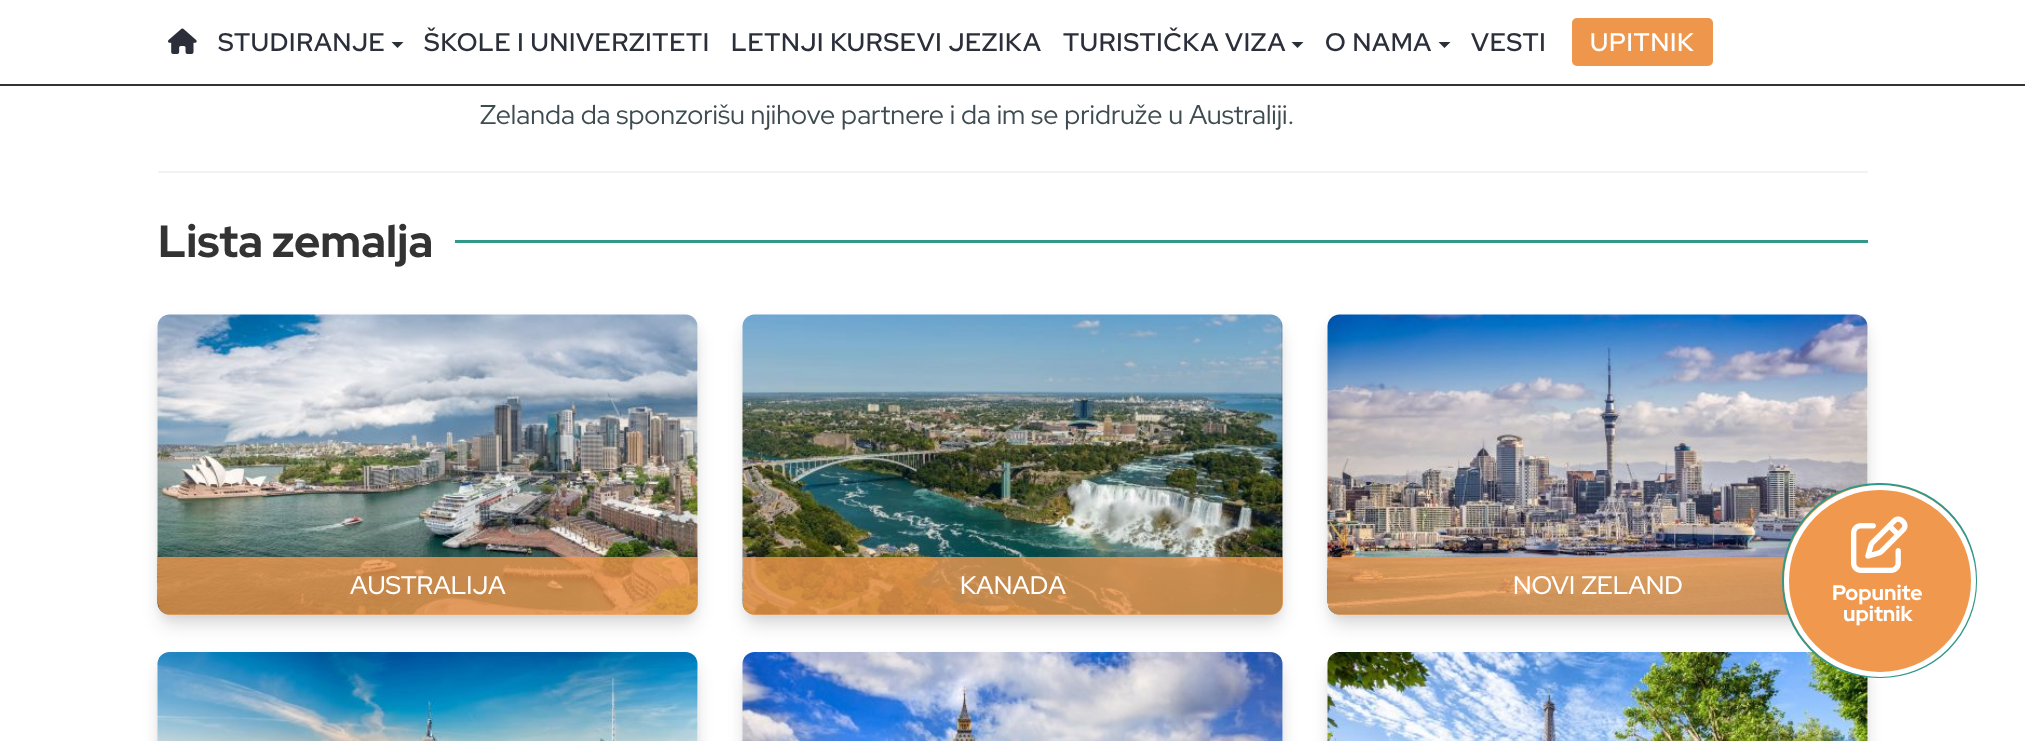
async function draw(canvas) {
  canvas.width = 2025;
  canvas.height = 741;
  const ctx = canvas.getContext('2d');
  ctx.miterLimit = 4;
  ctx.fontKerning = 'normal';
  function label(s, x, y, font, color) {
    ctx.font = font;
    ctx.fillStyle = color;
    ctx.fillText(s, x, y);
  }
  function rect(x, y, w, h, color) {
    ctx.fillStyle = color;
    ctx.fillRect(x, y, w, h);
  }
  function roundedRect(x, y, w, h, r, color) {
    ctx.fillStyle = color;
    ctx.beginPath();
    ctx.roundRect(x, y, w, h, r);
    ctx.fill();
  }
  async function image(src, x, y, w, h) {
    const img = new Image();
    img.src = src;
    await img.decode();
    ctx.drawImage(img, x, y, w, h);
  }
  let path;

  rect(0, 0, 2025, 741, '#fff');
  rect(0, 84, 2025, 2, '#333');
  await image('assets/img1.png', 168, 28, 29, 26);
  ctx.letterSpacing = '0.75px';
  label('STUDIRANJE', 218, 51, '600 25.5px Red Hat Display', '#2b2f3a');
  path = new Path2D('M391.5 42H403.5L397.5 48Z');
  ctx.fill(path);
  label('ŠKOLE I UNIVERZITETI', 424, 51, '600 25.5px Red Hat Display', '#2b2f3a');
  label('LETNJI KURSEVI JEZIKA', 731, 51, '600 25.5px Red Hat Display', '#2b2f3a');
  label('TURISTIČKA VIZA', 1063, 51, '600 25.5px Red Hat Display', '#2b2f3a');
  path = new Path2D('M1291.5 42H1303.5L1297.5 48Z');
  ctx.fill(path);
  label('O NAMA', 1325, 51, '600 25.5px Red Hat Display', '#2b2f3a');
  path = new Path2D('M1438.5 42H1450.5L1444.5 48Z');
  ctx.fill(path);
  label('VESTI', 1471, 51, '600 25.5px Red Hat Display', '#2b2f3a');
  roundedRect(1572, 18, 141, 48, 5, '#ed964c');
  label('UPITNIK', 1590, 51, '600 25.5px Red Hat Display', '#fff');
  rect(158, 171, 1710, 2, '#f3f3f3');
  ctx.letterSpacing = '0px';
  label('Zelanda da sponzorišu njihove partnere i da im se pridruže u Australiji.', 480, 124, '27px Red Hat Display', '#3e4b50');
  label('Lista zemalja', 158, 257, '800 45px Red Hat Display', '#333');
  rect(455, 240, 1413, 3, '#329889');
  ctx.fillStyle = '#17171729';
  ctx.filter = 'blur(9px)';
  ctx.beginPath();
  ctx.roundRect(161, 330, 534, 294, 9);
  ctx.fill();
  ctx.filter = 'none';
  ctx.fillStyle = '#17171714';
  ctx.filter = 'blur(6px)';
  ctx.beginPath();
  ctx.roundRect(161, 321, 534, 294, 9);
  ctx.fill();
  ctx.filter = 'none';
  roundedRect(158, 315, 540, 300, 12, '#fff');
  await image('assets/img2.png', 157, 314, 541, 301);
  ctx.fillStyle = '#f0984dcc';
  ctx.beginPath();
  ctx.roundRect(158, 557, 540, 58, [0, 0, 12, 12]);
  ctx.fill();
  label('AUSTRALIJA', 350, 594, '500 25.5px Red Hat Display', '#fff');
  ctx.fillStyle = '#17171729';
  ctx.filter = 'blur(9px)';
  ctx.beginPath();
  ctx.roundRect(746, 330, 534, 294, 9);
  ctx.fill();
  ctx.filter = 'none';
  ctx.fillStyle = '#17171714';
  ctx.filter = 'blur(6px)';
  ctx.beginPath();
  ctx.roundRect(746, 321, 534, 294, 9);
  ctx.fill();
  ctx.filter = 'none';
  roundedRect(743, 315, 540, 300, 12, '#fff');
  await image('assets/img3.png', 742, 314, 541, 301);
  ctx.fillStyle = '#f0984dcc';
  ctx.beginPath();
  ctx.roundRect(743, 557, 540, 58, [0, 0, 12, 12]);
  ctx.fill();
  label('KANADA', 960, 594, '500 25.5px Red Hat Display', '#fff');
  ctx.fillStyle = '#17171729';
  ctx.filter = 'blur(9px)';
  ctx.beginPath();
  ctx.roundRect(1331, 330, 534, 294, 9);
  ctx.fill();
  ctx.filter = 'none';
  ctx.fillStyle = '#17171714';
  ctx.filter = 'blur(6px)';
  ctx.beginPath();
  ctx.roundRect(1331, 321, 534, 294, 9);
  ctx.fill();
  ctx.filter = 'none';
  roundedRect(1328, 315, 540, 300, 12, '#fff');
  await image('assets/img4.png', 1327, 314, 541, 301);
  ctx.fillStyle = '#f0984dcc';
  ctx.beginPath();
  ctx.roundRect(1328, 557, 540, 58, [0, 0, 12, 12]);
  ctx.fill();
  ctx.wordSpacing = '1px';
  label('NOVI ZELAND', 1513, 594, '500 25.5px Red Hat Display', '#fff');
  ctx.fillStyle = '#17171729';
  ctx.filter = 'blur(9px)';
  ctx.beginPath();
  ctx.roundRect(161, 668, 534, 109, 9);
  ctx.fill();
  ctx.filter = 'none';
  ctx.fillStyle = '#17171714';
  ctx.filter = 'blur(6px)';
  ctx.beginPath();
  ctx.roundRect(161, 659, 534, 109, 9);
  ctx.fill();
  ctx.filter = 'none';
  roundedRect(158, 653, 540, 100, 12, '#fff');
  await image('assets/img5.png', 157, 652, 541, 89);
  ctx.fillStyle = '#17171729';
  ctx.filter = 'blur(9px)';
  ctx.beginPath();
  ctx.roundRect(746, 668, 534, 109, 9);
  ctx.fill();
  ctx.filter = 'none';
  ctx.fillStyle = '#17171714';
  ctx.filter = 'blur(6px)';
  ctx.beginPath();
  ctx.roundRect(746, 659, 534, 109, 9);
  ctx.fill();
  ctx.filter = 'none';
  roundedRect(743, 653, 540, 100, 12, '#fff');
  await image('assets/img6.png', 742, 652, 541, 89);
  ctx.fillStyle = '#17171729';
  ctx.filter = 'blur(9px)';
  ctx.beginPath();
  ctx.roundRect(1331, 668, 534, 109, 9);
  ctx.fill();
  ctx.filter = 'none';
  ctx.fillStyle = '#17171714';
  ctx.filter = 'blur(6px)';
  ctx.beginPath();
  ctx.roundRect(1331, 659, 534, 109, 9);
  ctx.fill();
  ctx.filter = 'none';
  roundedRect(1328, 653, 540, 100, 12, '#fff');
  await image('assets/img7.png', 1327, 652, 541, 89);
  ctx.fillStyle = '#f0984d';
  ctx.beginPath();
  ctx.roundRect(1783, 484, 193, 193, 95);
  ctx.fill();
  ctx.strokeStyle = '#329889';
  ctx.lineWidth = 2;
  ctx.stroke();
  ctx.beginPath();
  ctx.arc(1880, 581, 93.5, 0, 2 * Math.PI);
  ctx.strokeStyle = '#fff';
  ctx.lineWidth = 5;
  ctx.stroke();
  await image('assets/img8.png', 1851, 516, 57, 57);
  ctx.wordSpacing = '0px';
  label('Popunite', 1832, 600, '800 21px Red Hat Display', '#fff');
  label('upitnik', 1843, 621, '800 21px Red Hat Display', '#fff');
}

draw(document.querySelector('canvas'));
